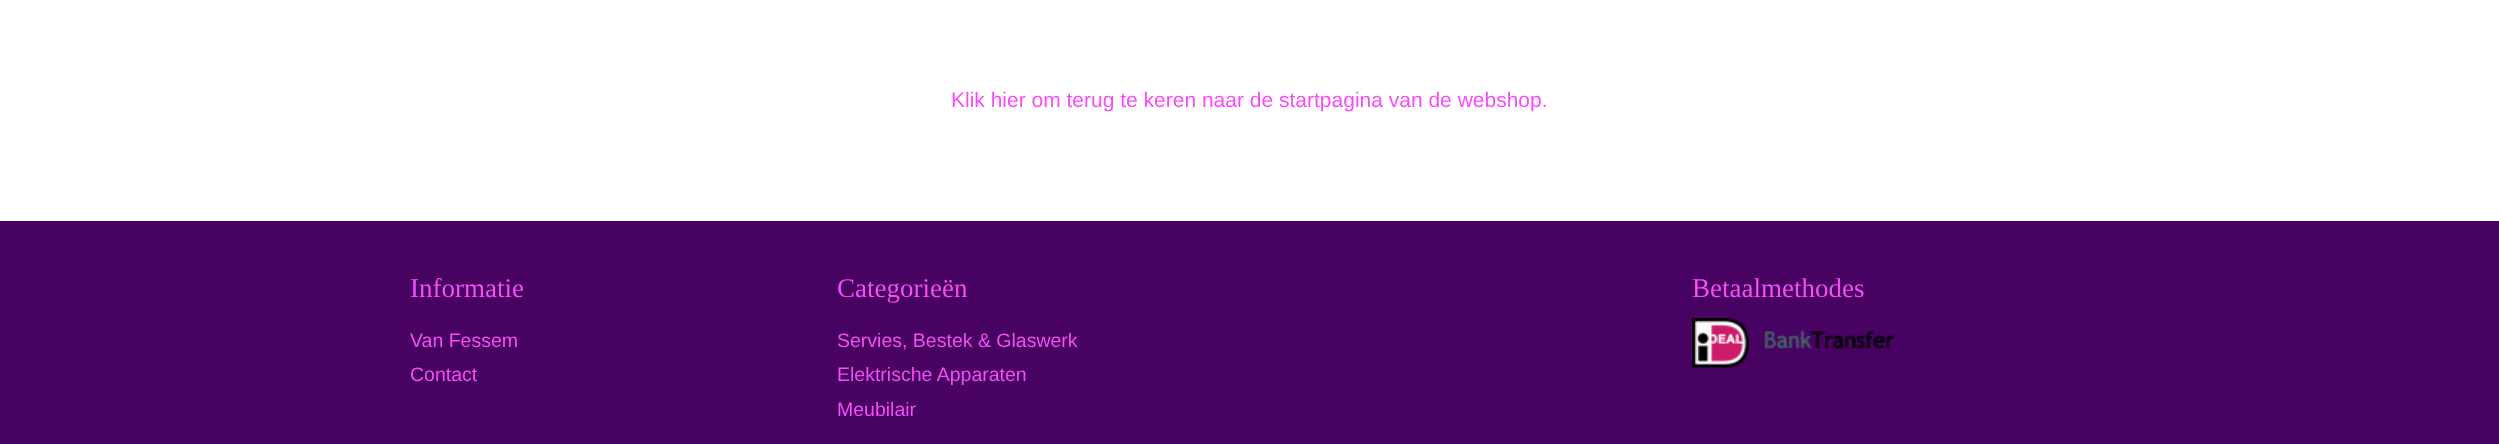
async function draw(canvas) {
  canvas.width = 2499;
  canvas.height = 444;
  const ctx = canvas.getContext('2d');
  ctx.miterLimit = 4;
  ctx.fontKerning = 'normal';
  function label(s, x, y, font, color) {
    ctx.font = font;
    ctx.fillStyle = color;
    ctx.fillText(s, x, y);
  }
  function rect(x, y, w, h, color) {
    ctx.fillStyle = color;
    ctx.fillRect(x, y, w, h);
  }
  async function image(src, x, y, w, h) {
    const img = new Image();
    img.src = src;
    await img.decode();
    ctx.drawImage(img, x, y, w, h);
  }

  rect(0, 0, 2499, 444, '#fff');
  label('Klik hier om terug te keren naar de startpagina van de webshop.', 951, 107, '21px Liberation Sans', '#f74df7');
  rect(0, 221, 2499, 223, '#480261');
  label('Informatie', 410, 297, '27px Liberation Serif', '#f74df7');
  label('Van Fessem', 410, 347, '19.5px Liberation Sans', '#f74df7');
  label('Contact', 410, 381, '19.5px Liberation Sans', '#f74df7');
  label('Categorieën', 837, 297, '27px Liberation Serif', '#f74df7');
  label('Servies, Bestek & Glaswerk', 837, 347, '19.5px Liberation Sans', '#f74df7');
  label('Elektrische Apparaten', 837, 381, '19.5px Liberation Sans', '#f74df7');
  label('Meubilair', 837, 416, '19.5px Liberation Sans', '#f74df7');
  label('Betaalmethodes', 1692, 297, '27px Liberation Serif', '#f74df7');
  await image('assets/img1.png', 1692, 318, 57, 50);
  await image('assets/img2.png', 1764, 330, 131, 20);
}

draw(document.querySelector('canvas'));
